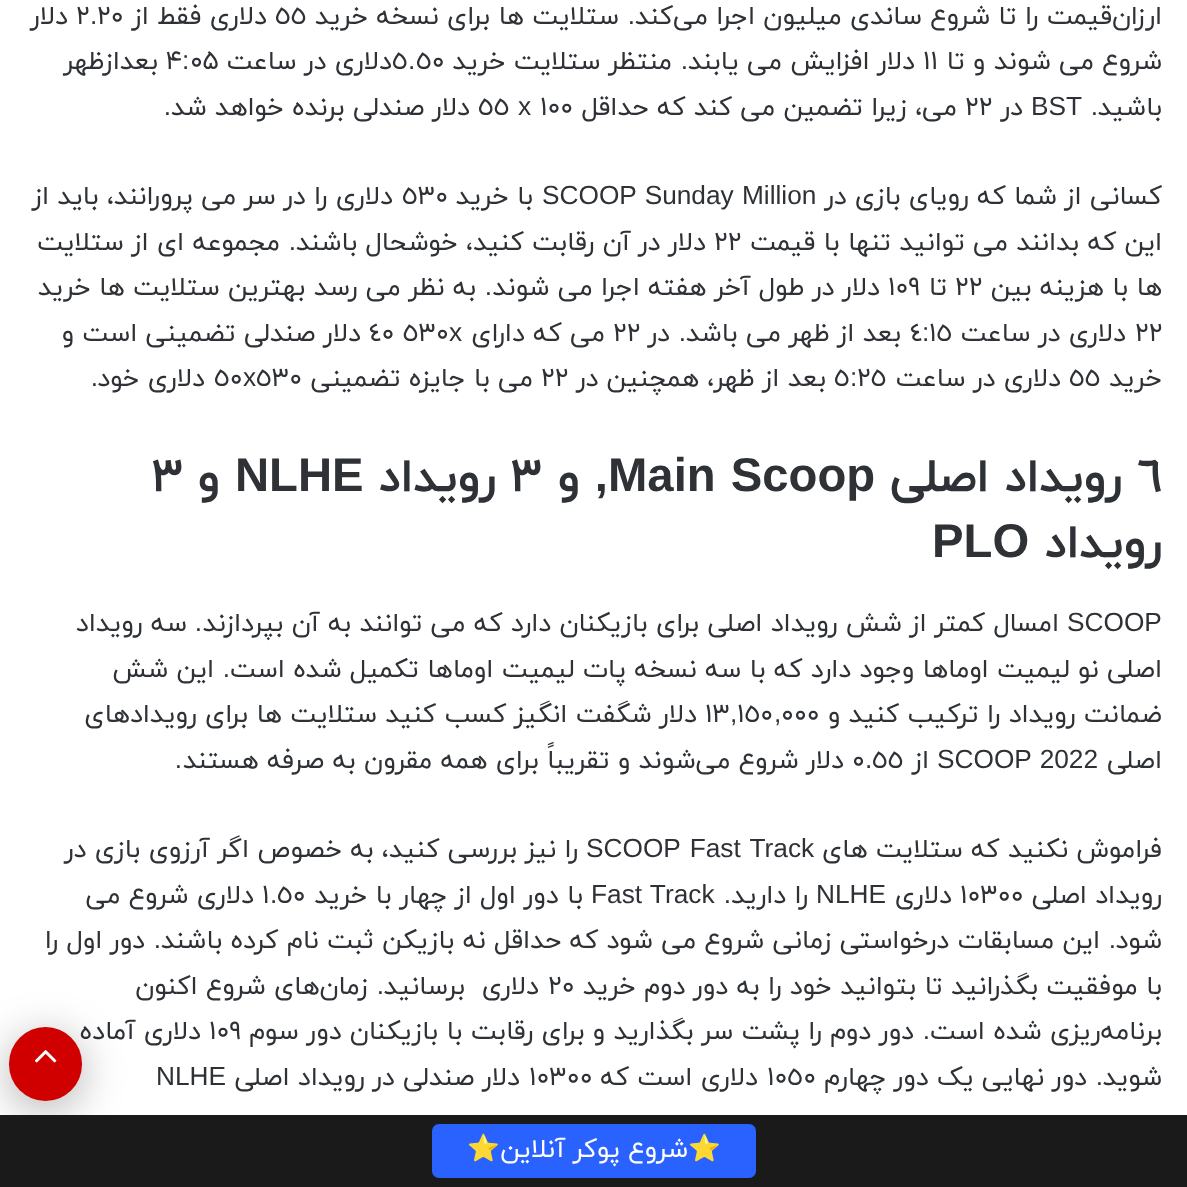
async function draw(canvas) {
  canvas.width = 1187;
  canvas.height = 1187;
  const ctx = canvas.getContext('2d');
  ctx.miterLimit = 4;
  ctx.fontKerning = 'normal';
  function label(s, x, y, font, color) {
    ctx.font = font;
    ctx.fillStyle = color;
    ctx.fillText(s, x, y);
  }
  function rect(x, y, w, h, color) {
    ctx.fillStyle = color;
    ctx.fillRect(x, y, w, h);
  }
  function roundedRect(x, y, w, h, r, color) {
    ctx.fillStyle = color;
    ctx.beginPath();
    ctx.roundRect(x, y, w, h, r);
    ctx.fill();
  }
  async function image(src, x, y, w, h) {
    const img = new Image();
    img.src = src;
    await img.decode();
    ctx.drawImage(img, x, y, w, h);
  }

  rect(0, 0, 1187, 1187, '#fff');
  ctx.direction = 'rtl';
  label('ارزان‌قیمت را تا شروع ساندی میلیون اجرا می‌کند', 1162, 24, '26.25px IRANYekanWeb', '#2e3136');
  label('.', 635, 24, '26.25px Liberation Sans', '#2e3136');
  label('ستلايت ها برای نسخه خرید', 619, 24, '26.25px IRANYekanWeb', '#2e3136');
  ctx.direction = 'ltr';
  label('٥٥', 275, 24, '26.25px IRANYekanWeb', '#2e3136');
  ctx.direction = 'rtl';
  label('دلاری فقط از', 267, 24, '26.25px IRANYekanWeb', '#2e3136');
  ctx.direction = 'ltr';
  label('٢٠', 97, 24, '26.25px IRANYekanWeb', '#2e3136');
  label('.', 90, 24, '26.25px Liberation Sans', '#2e3136');
  label('٢', 76, 24, '26.25px IRANYekanWeb', '#2e3136');
  ctx.direction = 'rtl';
  label('دلار', 68, 24, '26.25px IRANYekanWeb', '#2e3136');
  label('شروع می شوند و تا', 1162, 69, '26.25px IRANYekanWeb', '#2e3136');
  ctx.direction = 'ltr';
  label('١١', 923, 69, '26.25px IRANYekanWeb', '#2e3136');
  ctx.direction = 'rtl';
  label('دلار افزایش می یابند', 915, 69, '26.25px IRANYekanWeb', '#2e3136');
  label('.', 688, 69, '26.25px Liberation Sans', '#2e3136');
  label('منتظر ستلايت خرید', 672, 69, '26.25px IRANYekanWeb', '#2e3136');
  ctx.direction = 'ltr';
  label('٥٠', 416, 69, '26.25px IRANYekanWeb', '#2e3136');
  label('.', 408, 69, '26.25px Liberation Sans', '#2e3136');
  label('٥', 392, 69, '26.25px IRANYekanWeb', '#2e3136');
  ctx.direction = 'rtl';
  label('دلاری در ساعت', 392, 69, '26.25px IRANYekanWeb', '#2e3136');
  ctx.direction = 'ltr';
  label('۰۵', 190, 69, '26.25px IRANYekanWeb', '#2e3136');
  label(':', 182, 69, '26.25px Liberation Sans', '#2e3136');
  label('۴', 166, 69, '26.25px IRANYekanWeb', '#2e3136');
  ctx.direction = 'rtl';
  label('بعدازظهر', 158, 69, '26.25px IRANYekanWeb', '#2e3136');
  label('باشید', 1162, 115, '26.25px IRANYekanWeb', '#2e3136');
  label('.', 1098, 115, '26.25px Liberation Sans', '#2e3136');
  ctx.direction = 'ltr';
  label('BST', 1031, 115, '26.25px Liberation Sans', '#2e3136');
  ctx.direction = 'rtl';
  label('در', 1023, 115, '26.25px IRANYekanWeb', '#2e3136');
  ctx.direction = 'ltr';
  label('٢٢', 965, 115, '26.25px IRANYekanWeb', '#2e3136');
  ctx.direction = 'rtl';
  label('می، زیرا تضمین می کند که حداقل', 957, 115, '26.25px IRANYekanWeb', '#2e3136');
  ctx.direction = 'ltr';
  label('١٠٠', 540, 115, '26.25px IRANYekanWeb', '#2e3136');
  label('x', 518, 115, '26.25px Liberation Sans', '#2e3136');
  label('٥٥', 478, 115, '26.25px IRANYekanWeb', '#2e3136');
  ctx.direction = 'rtl';
  label('دلار صندلى برنده خواهد شد', 470, 115, '26.25px IRANYekanWeb', '#2e3136');
  label('.', 171, 115, '26.25px Liberation Sans', '#2e3136');
  label('کسانی از شما که رویای بازی در', 1162, 204, '26.25px IRANYekanWeb', '#2e3136');
  ctx.wordSpacing = '1px';
  ctx.direction = 'ltr';
  label('SCOOP Sunday Million', 542, 204, '26.25px Liberation Sans', '#2e3136');
  ctx.wordSpacing = '0px';
  ctx.direction = 'rtl';
  label('با خرید', 533, 204, '26.25px IRANYekanWeb', '#2e3136');
  ctx.direction = 'ltr';
  label('٥٣٠', 402, 204, '26.25px IRANYekanWeb', '#2e3136');
  ctx.direction = 'rtl';
  label('دلاری را در سر می پرورانند، باید از', 393, 204, '26.25px IRANYekanWeb', '#2e3136');
  label('این که بدانند می توانید تنها با قیمت', 1162, 250, '26.25px IRANYekanWeb', '#2e3136');
  ctx.direction = 'ltr';
  label('٢٢', 714, 250, '26.25px IRANYekanWeb', '#2e3136');
  ctx.direction = 'rtl';
  label('دلار در آن رقابت کنید، خوشحال باشند', 706, 250, '26.25px IRANYekanWeb', '#2e3136');
  label('.', 296, 250, '26.25px Liberation Sans', '#2e3136');
  label('مجموعه ای از ستلايت', 280, 250, '26.25px IRANYekanWeb', '#2e3136');
  label('ها با هزینه بین', 1162, 295, '26.25px IRANYekanWeb', '#2e3136');
  ctx.direction = 'ltr';
  label('٢٢', 955, 295, '26.25px IRANYekanWeb', '#2e3136');
  ctx.direction = 'rtl';
  label('تا', 947, 295, '26.25px IRANYekanWeb', '#2e3136');
  ctx.direction = 'ltr';
  label('١٠٩', 888, 295, '26.25px IRANYekanWeb', '#2e3136');
  ctx.direction = 'rtl';
  label('دلار در طول آخر هفته اجرا می شوند', 880, 295, '26.25px IRANYekanWeb', '#2e3136');
  label('.', 492, 295, '26.25px Liberation Sans', '#2e3136');
  label('به نظر می رسد بهترین ستلايت ها خرید', 476, 295, '26.25px IRANYekanWeb', '#2e3136');
  ctx.direction = 'ltr';
  label('٢٢', 1135, 341, '26.25px IRANYekanWeb', '#2e3136');
  ctx.direction = 'rtl';
  label('دلاری در ساعت', 1126, 341, '26.25px IRANYekanWeb', '#2e3136');
  ctx.direction = 'ltr';
  label('١٥', 929, 341, '26.25px IRANYekanWeb', '#2e3136');
  label(':', 922, 341, '26.25px Liberation Sans', '#2e3136');
  label('٤', 910, 341, '26.25px IRANYekanWeb', '#2e3136');
  ctx.direction = 'rtl';
  label('بعد از ظهر مى باشد', 901, 341, '26.25px IRANYekanWeb', '#2e3136');
  label('.', 686, 341, '26.25px Liberation Sans', '#2e3136');
  label('در', 670, 341, '26.25px IRANYekanWeb', '#2e3136');
  ctx.direction = 'ltr';
  label('٢٢', 613, 341, '26.25px IRANYekanWeb', '#2e3136');
  ctx.direction = 'rtl';
  label('می که دارای', 605, 341, '26.25px IRANYekanWeb', '#2e3136');
  ctx.direction = 'ltr';
  label('x', 449, 341, '26.25px Liberation Sans', '#2e3136');
  label('٥٣٠ ٤٠', 369, 341, '26.25px IRANYekanWeb', '#2e3136');
  ctx.direction = 'rtl';
  label('دلار صندلی تضمینی است و', 361, 341, '26.25px IRANYekanWeb', '#2e3136');
  label('خرید', 1162, 386, '26.25px IRANYekanWeb', '#2e3136');
  ctx.direction = 'ltr';
  label('٥٥', 1069, 386, '26.25px IRANYekanWeb', '#2e3136');
  ctx.direction = 'rtl';
  label('دلاری در ساعت', 1061, 386, '26.25px IRANYekanWeb', '#2e3136');
  ctx.direction = 'ltr';
  label('٢٥', 857, 386, '26.25px IRANYekanWeb', '#2e3136');
  label(':', 850, 386, '26.25px Liberation Sans', '#2e3136');
  label('٥', 834, 386, '26.25px IRANYekanWeb', '#2e3136');
  ctx.direction = 'rtl';
  label('بعد از ظهر، همچنین در', 826, 386, '26.25px IRANYekanWeb', '#2e3136');
  ctx.direction = 'ltr';
  label('٢٢', 541, 386, '26.25px IRANYekanWeb', '#2e3136');
  ctx.direction = 'rtl';
  label('می با جایزه تضمینی', 533, 386, '26.25px IRANYekanWeb', '#2e3136');
  ctx.direction = 'ltr';
  label('٥٣٠', 256, 386, '26.25px IRANYekanWeb', '#2e3136');
  label('x', 243, 386, '26.25px Liberation Sans', '#2e3136');
  label('٥٠', 214, 386, '26.25px IRANYekanWeb', '#2e3136');
  ctx.direction = 'rtl';
  label('دلاری خود', 205, 386, '26.25px IRANYekanWeb', '#2e3136');
  label('.', 98, 386, '26.25px Liberation Sans', '#2e3136');
  ctx.direction = 'ltr';
  label('٦', 1137, 491, 'bold 47.25px IRANYekanWeb', '#2e3136');
  ctx.direction = 'rtl';
  label('رويداد اصلى', 1122, 491, 'bold 47.25px IRANYekanWeb', '#2e3136');
  ctx.wordSpacing = '2px';
  ctx.direction = 'ltr';
  label('Main Scoop', 608, 491, 'bold 47.25px Liberation Sans', '#2e3136');
  ctx.wordSpacing = '0px';
  ctx.direction = 'rtl';
  label(',', 608, 491, 'bold 47.25px Liberation Sans', '#2e3136');
  label('و', 580, 491, 'bold 47.25px IRANYekanWeb', '#2e3136');
  ctx.direction = 'ltr';
  label('٣', 511, 491, 'bold 47.25px IRANYekanWeb', '#2e3136');
  ctx.direction = 'rtl';
  label('رويداد', 496, 491, 'bold 47.25px IRANYekanWeb', '#2e3136');
  ctx.direction = 'ltr';
  label('NLHE', 235, 491, 'bold 47.25px Liberation Sans', '#2e3136');
  ctx.direction = 'rtl';
  label('و', 220, 491, 'bold 47.25px IRANYekanWeb', '#2e3136');
  ctx.direction = 'ltr';
  label('٣', 152, 491, 'bold 47.25px IRANYekanWeb', '#2e3136');
  ctx.direction = 'rtl';
  label('رويداد', 1162, 557, 'bold 47.25px IRANYekanWeb', '#2e3136');
  ctx.direction = 'ltr';
  label('PLO', 932, 557, 'bold 47.25px Liberation Sans', '#2e3136');
  label('SCOOP', 1067, 631, '26.25px Liberation Sans', '#2e3136');
  ctx.direction = 'rtl';
  label('امسال کمتر از شش رویداد اصلی برای بازیکنان دارد که می توانند به آن بپردازند', 1059, 631, '26.25px IRANYekanWeb', '#2e3136');
  label('.', 202, 631, '26.25px Liberation Sans', '#2e3136');
  label('سه رویداد', 187, 631, '26.25px IRANYekanWeb', '#2e3136');
  label('اصلی نو ليميت اوماها وجود دارد که با سه نسخه پات ليميت اوماها تکمیل شده است', 1162, 677, '26.25px IRANYekanWeb', '#2e3136');
  label('.', 230, 677, '26.25px Liberation Sans', '#2e3136');
  label('این شش', 214, 677, '26.25px IRANYekanWeb', '#2e3136');
  label('ضمانت رویداد را ترکیب کنید و', 1162, 722, '26.25px IRANYekanWeb', '#2e3136');
  ctx.direction = 'ltr';
  label('٠٠٠', 781, 722, '26.25px IRANYekanWeb', '#2e3136');
  label('١٥٠', 737, 722, '26.25px IRANYekanWeb', '#2e3136');
  label('١٣', 705, 722, '26.25px IRANYekanWeb', '#2e3136');
  ctx.direction = 'rtl';
  label('دلار شگفت انگیز كسب كنيد ستلايت ها برای رویدادهای', 697, 722, '26.25px IRANYekanWeb', '#2e3136');
  ctx.direction = 'ltr';
  label(',', 774, 722, '26.25px Liberation Sans', '#2e3136');
  label(',', 730, 722, '26.25px Liberation Sans', '#2e3136');
  ctx.direction = 'rtl';
  label('اصلی', 1162, 768, '26.25px IRANYekanWeb', '#2e3136');
  ctx.wordSpacing = '1px';
  ctx.direction = 'ltr';
  label('SCOOP 2022', 937, 768, '26.25px Liberation Sans', '#2e3136');
  ctx.wordSpacing = '0px';
  ctx.direction = 'rtl';
  label('از', 929, 768, '26.25px IRANYekanWeb', '#2e3136');
  ctx.direction = 'ltr';
  label('٥٥', 872, 768, '26.25px IRANYekanWeb', '#2e3136');
  label('٠', 852, 768, '26.25px IRANYekanWeb', '#2e3136');
  ctx.direction = 'rtl';
  label('دلار شروع می‌شوند و تقریباً برای همه مقرون به صرفه هستند', 844, 768, '26.25px IRANYekanWeb', '#2e3136');
  ctx.direction = 'ltr';
  label('.', 865, 768, '26.25px Liberation Sans', '#2e3136');
  ctx.direction = 'rtl';
  label('.', 182, 768, '26.25px Liberation Sans', '#2e3136');
  label('فراموش نکنید که ستلايت های', 1162, 857, '26.25px IRANYekanWeb', '#2e3136');
  ctx.wordSpacing = '2px';
  ctx.direction = 'ltr';
  label('SCOOP Fast Track', 586, 857, '26.25px Liberation Sans', '#2e3136');
  ctx.wordSpacing = '0px';
  ctx.direction = 'rtl';
  label('را نیز بررسی کنید، به خصوص اگر آرزوی بازی در', 578, 857, '26.25px IRANYekanWeb', '#2e3136');
  label('رویداد اصلی', 1162, 903, '26.25px IRANYekanWeb', '#2e3136');
  ctx.direction = 'ltr';
  label('١٠٣٠٠', 960, 903, '26.25px IRANYekanWeb', '#2e3136');
  ctx.direction = 'rtl';
  label('دلاری', 952, 903, '26.25px IRANYekanWeb', '#2e3136');
  ctx.direction = 'ltr';
  label('NLHE', 816, 903, '26.25px Liberation Sans', '#2e3136');
  ctx.direction = 'rtl';
  label('را دارید', 808, 903, '26.25px IRANYekanWeb', '#2e3136');
  label('.', 731, 903, '26.25px Liberation Sans', '#2e3136');
  ctx.wordSpacing = '1px';
  ctx.direction = 'ltr';
  label('Fast Track', 591, 903, '26.25px Liberation Sans', '#2e3136');
  ctx.wordSpacing = '0px';
  ctx.direction = 'rtl';
  label('با دور اول از چهار با خرید', 583, 903, '26.25px IRANYekanWeb', '#2e3136');
  ctx.direction = 'ltr';
  label('٥٠', 277, 903, '26.25px IRANYekanWeb', '#2e3136');
  label('.', 270, 903, '26.25px Liberation Sans', '#2e3136');
  label('١', 262, 903, '26.25px IRANYekanWeb', '#2e3136');
  ctx.direction = 'rtl';
  label('دلاری شروع می', 254, 903, '26.25px IRANYekanWeb', '#2e3136');
  label('شود', 1162, 948, '26.25px IRANYekanWeb', '#2e3136');
  label('.', 1116, 948, '26.25px Liberation Sans', '#2e3136');
  label('این مسابقات درخواستی زمانی شروع می شود که حداقل نه بازیکن ثبت نام کرده باشند', 1100, 948, '26.25px IRANYekanWeb', '#2e3136');
  label('.', 161, 948, '26.25px Liberation Sans', '#2e3136');
  label('دور اول را', 145, 948, '26.25px IRANYekanWeb', '#2e3136');
  label('با موفقيت بگذرانيد تا بتوانيد خود را به دور دوم خرید', 1162, 994, '26.25px IRANYekanWeb', '#2e3136');
  ctx.direction = 'ltr';
  label('٢٠', 548, 994, '26.25px IRANYekanWeb', '#2e3136');
  ctx.direction = 'rtl';
  label('دلاری ‌ برسانيد', 539, 994, '26.25px IRANYekanWeb', '#2e3136');
  label('.', 384, 994, '26.25px Liberation Sans', '#2e3136');
  label('زمان‌های شروع اكنون', 368, 994, '26.25px IRANYekanWeb', '#2e3136');
  label('برنامه‌ریزی شده است', 1162, 1039, '26.25px IRANYekanWeb', '#2e3136');
  label('.', 930, 1039, '26.25px Liberation Sans', '#2e3136');
  label('دور دوم را پشت سر بگذارید و برای رقابت با بازیکنان دور سوم', 914, 1039, '26.25px IRANYekanWeb', '#2e3136');
  ctx.direction = 'ltr';
  label('١٠٩', 209, 1039, '26.25px IRANYekanWeb', '#2e3136');
  ctx.direction = 'rtl';
  label('دلاری آماده', 201, 1039, '26.25px IRANYekanWeb', '#2e3136');
  label('شوید', 1162, 1085, '26.25px IRANYekanWeb', '#2e3136');
  label('.', 1103, 1085, '26.25px Liberation Sans', '#2e3136');
  label('دور نهایی یک دور چهارم', 1087, 1085, '26.25px IRANYekanWeb', '#2e3136');
  ctx.direction = 'ltr';
  label('١٠٥٠', 767, 1085, '26.25px IRANYekanWeb', '#2e3136');
  ctx.direction = 'rtl';
  label('دلاری است که', 758, 1085, '26.25px IRANYekanWeb', '#2e3136');
  ctx.direction = 'ltr';
  label('١٠٣٠٠', 529, 1085, '26.25px IRANYekanWeb', '#2e3136');
  ctx.direction = 'rtl';
  label('دلار صندلی در رویداد اصلی', 520, 1085, '26.25px IRANYekanWeb', '#2e3136');
  ctx.direction = 'ltr';
  label('NLHE', 156, 1085, '26.25px Liberation Sans', '#2e3136');
  ctx.fillStyle = '#0000004d';
  ctx.filter = 'blur(22px)';
  ctx.beginPath();
  ctx.roundRect(9, 1036, 73, 74, 36.5);
  ctx.fill();
  ctx.filter = 'none';
  roundedRect(9, 1027, 73, 74, 36.5, '#d10000');
  await image('assets/img1.png', 34, 1050, 23, 13);
  rect(0, 1115, 1187, 72, '#1a1a1a');
  roundedRect(432, 1124, 324, 54, 7, '#2962ff');
  ctx.direction = 'rtl';
  label('⭐', 721, 1157, '26.25px Noto Color Emoji', '#fff');
  label('شروع پوکر آنلاین', 688, 1157, '26.25px IRANYekanWeb', '#fff');
  label('⭐', 500, 1157, '26.25px Noto Color Emoji', '#fff');
}

draw(document.querySelector('canvas'));
